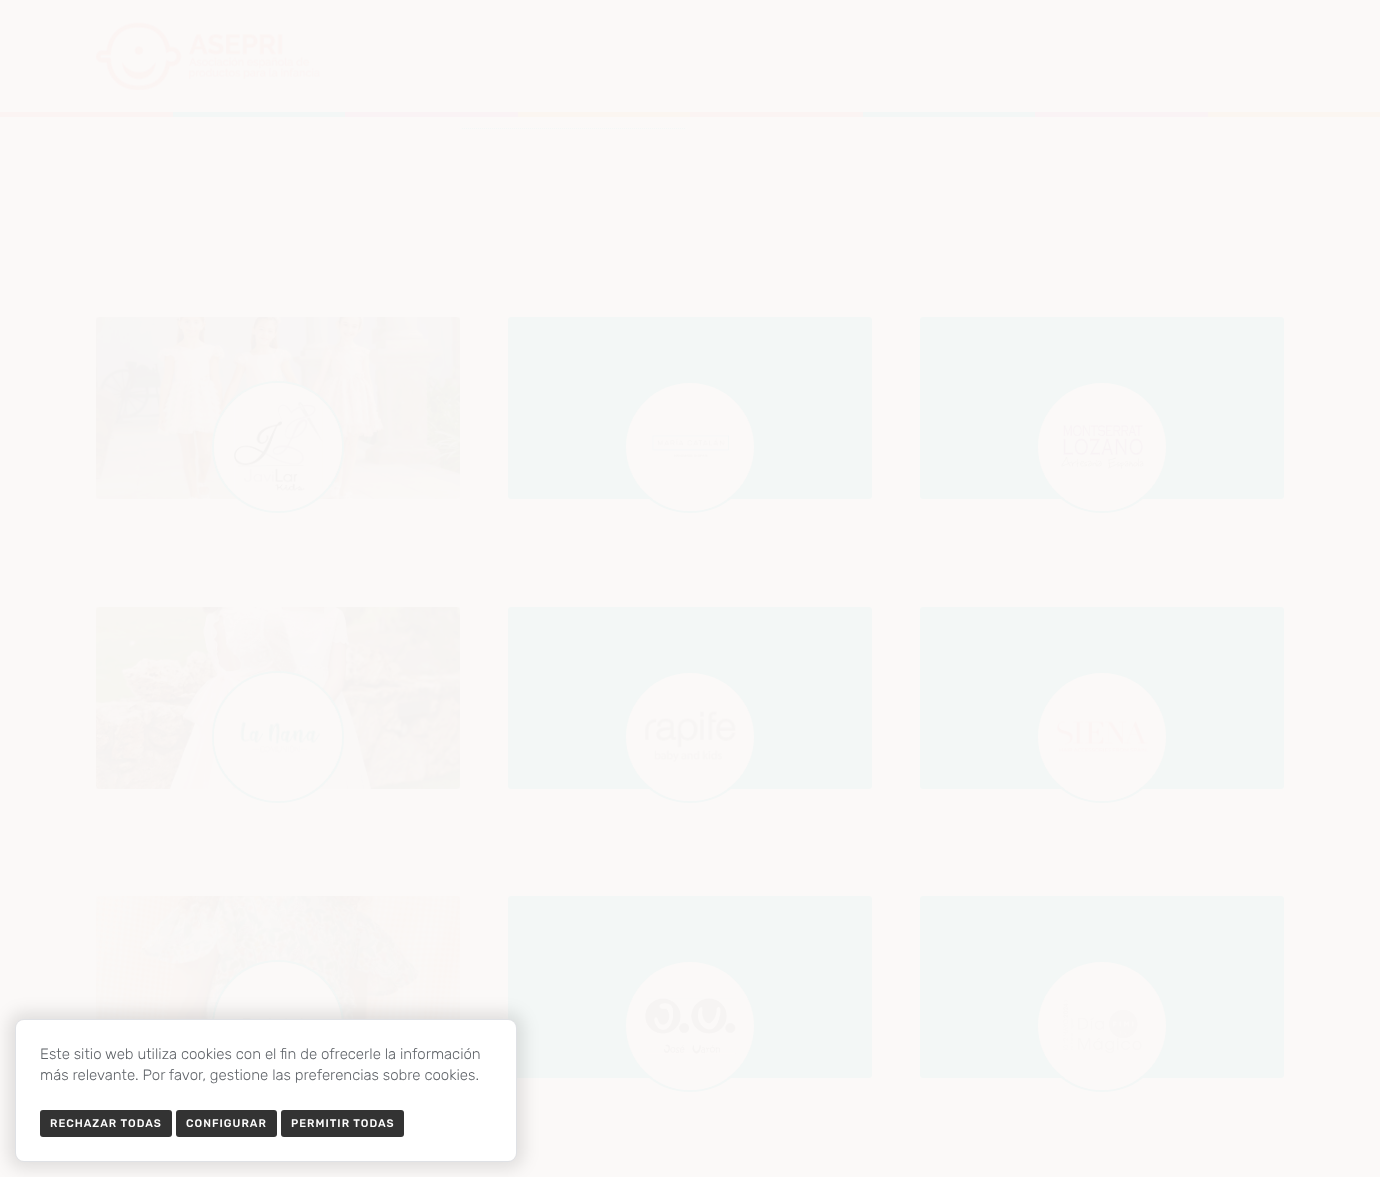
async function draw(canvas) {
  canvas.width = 1380;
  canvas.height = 1177;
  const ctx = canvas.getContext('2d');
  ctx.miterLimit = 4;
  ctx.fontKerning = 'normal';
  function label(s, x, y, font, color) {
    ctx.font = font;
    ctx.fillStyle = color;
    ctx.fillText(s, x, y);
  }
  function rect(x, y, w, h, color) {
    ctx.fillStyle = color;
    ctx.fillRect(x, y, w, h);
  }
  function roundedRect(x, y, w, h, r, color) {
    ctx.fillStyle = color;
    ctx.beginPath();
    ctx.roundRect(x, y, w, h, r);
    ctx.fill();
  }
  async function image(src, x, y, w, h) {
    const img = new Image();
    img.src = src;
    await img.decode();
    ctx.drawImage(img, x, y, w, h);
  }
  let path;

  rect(0, 0, 1380, 1177, '#fbf9f8');
  await image('assets/img1.png', 96, 22, 224, 68);
  rect(0, 112, 173, 5, '#fbf4f3');
  rect(173, 112, 172, 5, '#f3f7f6');
  rect(345, 112, 173, 5, '#faf3f5');
  rect(518, 112, 172, 5, '#fbf6f1');
  rect(690, 112, 173, 5, '#fbf4f3');
  rect(863, 112, 172, 5, '#f3f7f6');
  rect(1035, 112, 173, 5, '#faf3f5');
  rect(1208, 112, 172, 5, '#fbf6f1');
  path = new Path2D('M462 128.5H685');
  ctx.strokeStyle = '#f3f8f7';
  ctx.setLineDash([1, 1]);
  ctx.stroke(path);
  await image('assets/img2.png', 96, 317, 364, 182);
  ctx.beginPath();
  ctx.arc(278, 447, 65, 0, 2 * Math.PI);
  ctx.strokeStyle = '#f3f7f6';
  ctx.lineWidth = 2;
  ctx.setLineDash([]);
  ctx.stroke();
  ctx.fillStyle = '#fbf9f8';
  ctx.beginPath();
  ctx.arc(278, 447, 64, 0, 2 * Math.PI);
  ctx.fill();
  await image('assets/img3.png', 234, 402, 89, 89);
  roundedRect(508, 317, 364, 182, 3, '#f3f7f6');
  ctx.beginPath();
  ctx.arc(690, 447, 65, 0, 2 * Math.PI);
  ctx.stroke();
  ctx.fillStyle = '#fbf9f8';
  ctx.beginPath();
  ctx.arc(690, 447, 64, 0, 2 * Math.PI);
  ctx.fill();
  await image('assets/img4.png', 645, 402, 91, 91);
  roundedRect(920, 317, 364, 182, 3, '#f3f7f6');
  ctx.beginPath();
  ctx.arc(1102, 447, 65, 0, 2 * Math.PI);
  ctx.stroke();
  ctx.fillStyle = '#fbf9f8';
  ctx.beginPath();
  ctx.arc(1102, 447, 64, 0, 2 * Math.PI);
  ctx.fill();
  await image('assets/img5.png', 1061, 425, 83, 44);
  await image('assets/img6.png', 96, 607, 364, 182);
  ctx.beginPath();
  ctx.arc(278, 737, 65, 0, 2 * Math.PI);
  ctx.stroke();
  ctx.beginPath();
  ctx.arc(278, 737, 64, 0, 2 * Math.PI);
  ctx.fill();
  await image('assets/img7.png', 240, 721, 80, 32);
  roundedRect(508, 607, 364, 182, 3, '#f3f7f6');
  ctx.beginPath();
  ctx.arc(690, 737, 65, 0, 2 * Math.PI);
  ctx.stroke();
  ctx.fillStyle = '#fbf9f8';
  ctx.beginPath();
  ctx.arc(690, 737, 64, 0, 2 * Math.PI);
  ctx.fill();
  await image('assets/img8.png', 645, 711, 91, 51);
  roundedRect(920, 607, 364, 182, 3, '#f3f7f6');
  ctx.beginPath();
  ctx.arc(1102, 737, 65, 0, 2 * Math.PI);
  ctx.stroke();
  ctx.fillStyle = '#fbf9f8';
  ctx.beginPath();
  ctx.arc(1102, 737, 64, 0, 2 * Math.PI);
  ctx.fill();
  await image('assets/img9.png', 1057, 721, 91, 31);
  await image('assets/img10.png', 96, 896, 364, 123);
  ctx.beginPath();
  ctx.arc(278, 1026, 65, 0, 2 * Math.PI);
  ctx.stroke();
  ctx.beginPath();
  ctx.arc(278, 1026, 64, 0, 2 * Math.PI);
  ctx.fill();
  await image('assets/img11.png', 241, 1017, 75, 2);
  roundedRect(508, 896, 364, 182, 3, '#f3f7f6');
  ctx.beginPath();
  ctx.arc(690, 1026, 65, 0, 2 * Math.PI);
  ctx.stroke();
  ctx.fillStyle = '#fbf9f8';
  ctx.beginPath();
  ctx.arc(690, 1026, 64, 0, 2 * Math.PI);
  ctx.fill();
  await image('assets/img12.png', 645, 998, 91, 56);
  roundedRect(920, 896, 364, 182, 3, '#f3f7f6');
  ctx.beginPath();
  ctx.arc(1102, 1026, 65, 0, 2 * Math.PI);
  ctx.stroke();
  ctx.fillStyle = '#fbf9f8';
  ctx.beginPath();
  ctx.arc(1102, 1026, 64, 0, 2 * Math.PI);
  ctx.fill();
  await image('assets/img13.png', 1063, 999, 79, 54);
  ctx.fillStyle = '#0000001a';
  ctx.filter = 'blur(8px)';
  ctx.beginPath();
  ctx.roundRect(8, 1012, 516, 157, 16);
  ctx.fill();
  ctx.filter = 'none';
  ctx.beginPath();
  ctx.roundRect(15.5, 1019.5, 501, 142, 8.5);
  ctx.strokeStyle = '#dfe1e5';
  ctx.lineWidth = 1;
  ctx.stroke();
  roundedRect(16, 1020, 500, 141, 8, '#fff');
  label('Este sitio web utiliza cookies con el fin de ofrecerle la información', 40, 1059, '300 15px Rubik', '#5f6368');
  label('más relevante. Por favor, gestione las preferencias sobre cookies.', 40, 1080, '300 15px Rubik', '#5f6368');
  roundedRect(40, 1110, 132, 27, 3, '#333');
  ctx.letterSpacing = '1px';
  label('RECHAZAR TODAS', 50, 1127, '500 11px Rubik', '#fff');
  roundedRect(176, 1110, 101, 27, 3, '#333');
  label('CONFIGURAR', 186, 1127, '500 11px Rubik', '#fff');
  roundedRect(281, 1110, 123, 27, 3, '#333');
  label('PERMITIR TODAS', 291, 1127, '500 11px Rubik', '#fff');
}

draw(document.querySelector('canvas'));
